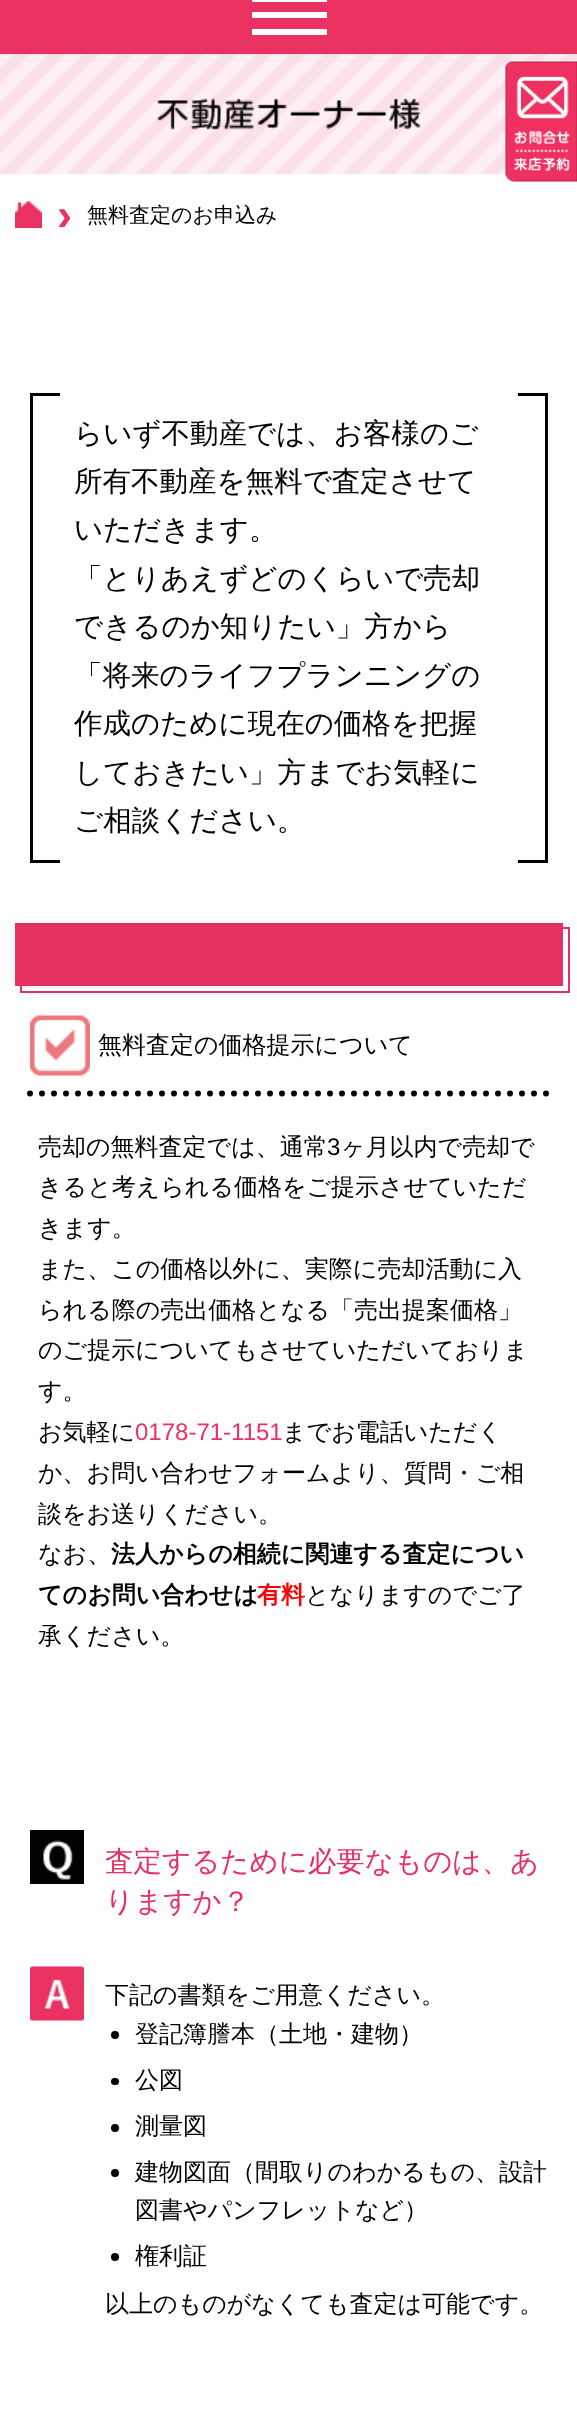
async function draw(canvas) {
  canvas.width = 577;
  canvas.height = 2436;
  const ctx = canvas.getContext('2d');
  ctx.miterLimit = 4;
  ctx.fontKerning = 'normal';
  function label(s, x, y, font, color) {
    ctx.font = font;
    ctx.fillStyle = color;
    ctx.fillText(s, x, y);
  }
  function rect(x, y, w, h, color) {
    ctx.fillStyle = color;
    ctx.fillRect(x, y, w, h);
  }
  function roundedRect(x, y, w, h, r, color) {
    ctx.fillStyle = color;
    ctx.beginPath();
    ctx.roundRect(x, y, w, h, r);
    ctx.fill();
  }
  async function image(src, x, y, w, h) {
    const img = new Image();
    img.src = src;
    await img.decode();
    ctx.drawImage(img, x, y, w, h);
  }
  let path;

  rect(0, 0, 577, 2436, '#fff');
  await image('assets/img2.png', 0, 54, 577, 120);
  await image('assets/img1.png', 505, 61, 72, 121);
  rect(0, 0, 577, 54, '#e93162');
  rect(252, 0, 75, 2, '#fff');
  rect(252, 12, 75, 6, '#fff');
  rect(252, 29, 75, 6, '#fff');
  await image('assets/img3.png', 157, 98, 264, 32);
  await image('assets/img4.png', 15, 201, 27, 27);
  label('›', 57, 230, 'bold 45px Liberation Sans', '#eb3162');
  label('無料査定のお申込み', 87, 222, '500 21px WenQuanYi Zen Hei', '#000');
  rect(30, 393, 30, 3, '#000');
  rect(30, 860, 30, 3, '#000');
  rect(30, 393, 3, 470, '#000');
  label('らいず不動産では、お客様のご', 74, 443, '500 28.5px WenQuanYi Zen Hei', '#000');
  label('所有不動産を無料で査定させて', 74, 491, '500 28.5px WenQuanYi Zen Hei', '#000');
  label('いただきます。', 74, 539, '500 28.5px WenQuanYi Zen Hei', '#000');
  label('「とりあえずどのくらいで売却', 74, 588, '500 28.5px WenQuanYi Zen Hei', '#000');
  label('できるのか知りたい」方から', 74, 636, '500 28.5px WenQuanYi Zen Hei', '#000');
  label('「将来のライフプランニングの', 74, 685, '500 28.5px WenQuanYi Zen Hei', '#000');
  label('作成のために現在の価格を把握', 74, 733, '500 28.5px WenQuanYi Zen Hei', '#000');
  label('しておきたい」方までお気軽に', 74, 782, '500 28.5px WenQuanYi Zen Hei', '#000');
  label('ご相談ください。', 74, 830, '500 28.5px WenQuanYi Zen Hei', '#000');
  rect(518, 393, 30, 3, '#000');
  rect(545, 393, 3, 470, '#000');
  rect(518, 860, 30, 3, '#000');
  rect(15, 923, 548, 63, '#e53162');
  ctx.strokeStyle = '#e53162';
  ctx.lineWidth = 2;
  ctx.strokeRect(21, 928, 548, 64);
  await image('assets/img5.png', 30, 1015, 60, 61);
  path = new Path2D('M30 1093.5H547.5');
  ctx.strokeStyle = '#000';
  ctx.lineWidth = 6;
  ctx.lineCap = 'round';
  ctx.setLineDash([0, 12]);
  ctx.stroke(path);
  label('無料査定の価格提示について', 98, 1053, '500 24px WenQuanYi Zen Hei', '#000');
  label('売却の無料査定では、通常', 38, 1155, '500 24px WenQuanYi Zen Hei', '#000');
  label('3', 327, 1155, '24px Liberation Sans', '#000');
  label('ヶ月以内で売却で', 341, 1155, '500 24px WenQuanYi Zen Hei', '#000');
  label('きると考えられる価格をご提示させていただ', 38, 1195, '500 24px WenQuanYi Zen Hei', '#000');
  label('きます。', 38, 1236, '500 24px WenQuanYi Zen Hei', '#000');
  label('また、この価格以外に、実際に売却活動に入', 38, 1277, '500 24px WenQuanYi Zen Hei', '#000');
  label('られる際の売出価格となる「売出提案価格」', 38, 1318, '500 24px WenQuanYi Zen Hei', '#000');
  label('のご提示についてもさせていただいておりま', 38, 1358, '500 24px WenQuanYi Zen Hei', '#000');
  label('す。', 38, 1399, '500 24px WenQuanYi Zen Hei', '#000');
  label('お気軽に', 38, 1440, '500 24px WenQuanYi Zen Hei', '#000');
  label('0178-71-1151', 135, 1440, '24px Liberation Sans', '#eb3162');
  label('までお電話いただく', 282, 1440, '500 24px WenQuanYi Zen Hei', '#000');
  label('か、お問い合わせフォームより、質問・ご相', 38, 1481, '500 24px WenQuanYi Zen Hei', '#000');
  label('談をお送りください。', 38, 1522, '500 24px WenQuanYi Zen Hei', '#000');
  label('なお、', 38, 1562, '500 24px WenQuanYi Zen Hei', '#000');
  label('法人からの相続に関連する査定につい', 111, 1562, 'bold 24px WenQuanYi Zen Hei', '#000');
  label('てのお問い合わせは', 38, 1603, 'bold 24px WenQuanYi Zen Hei', '#000');
  label('有料', 257, 1603, 'bold 24px WenQuanYi Zen Hei', '#f00');
  label('となりますのでご了', 305, 1603, '500 24px WenQuanYi Zen Hei', '#000');
  label('承ください。', 38, 1644, '500 24px WenQuanYi Zen Hei', '#000');
  await image('assets/img6.png', 30, 1830, 54, 54);
  label('査定するために必要なものは、あ', 105, 1871, '500 28.5px WenQuanYi Zen Hei', '#e53162');
  label('りますか？', 105, 1911, '500 28.5px WenQuanYi Zen Hei', '#e53162');
  await image('assets/img7.png', 30, 1966, 54, 55);
  label('下記の書類をご用意ください。', 105, 2003, '500 24px WenQuanYi Zen Hei', '#000');
  ctx.beginPath();
  ctx.arc(115, 2035, 4, 0, 2 * Math.PI);
  ctx.fill();
  label('登記簿謄本（土地・建物）', 135, 2042, '500 24px WenQuanYi Zen Hei', '#000');
  roundedRect(111, 2078, 8, 7, 3.5, '#000');
  label('公図', 135, 2088, '500 24px WenQuanYi Zen Hei', '#000');
  ctx.beginPath();
  ctx.arc(115, 2128, 4, 0, 2 * Math.PI);
  ctx.fill();
  label('測量図', 135, 2134, '500 24px WenQuanYi Zen Hei', '#000');
  ctx.beginPath();
  ctx.arc(115, 2173, 4, 0, 2 * Math.PI);
  ctx.fill();
  label('建物図面（間取りのわかるもの、設計', 135, 2180, '500 24px WenQuanYi Zen Hei', '#000');
  label('図書やパンフレットなど）', 135, 2218, '500 24px WenQuanYi Zen Hei', '#000');
  ctx.beginPath();
  ctx.arc(115, 2257, 4, 0, 2 * Math.PI);
  ctx.fill();
  label('権利証', 135, 2264, '500 24px WenQuanYi Zen Hei', '#000');
  label('以上のものがなくても査定は可能です。', 105, 2312, '500 24px WenQuanYi Zen Hei', '#000');
}

draw(document.querySelector('canvas'));
